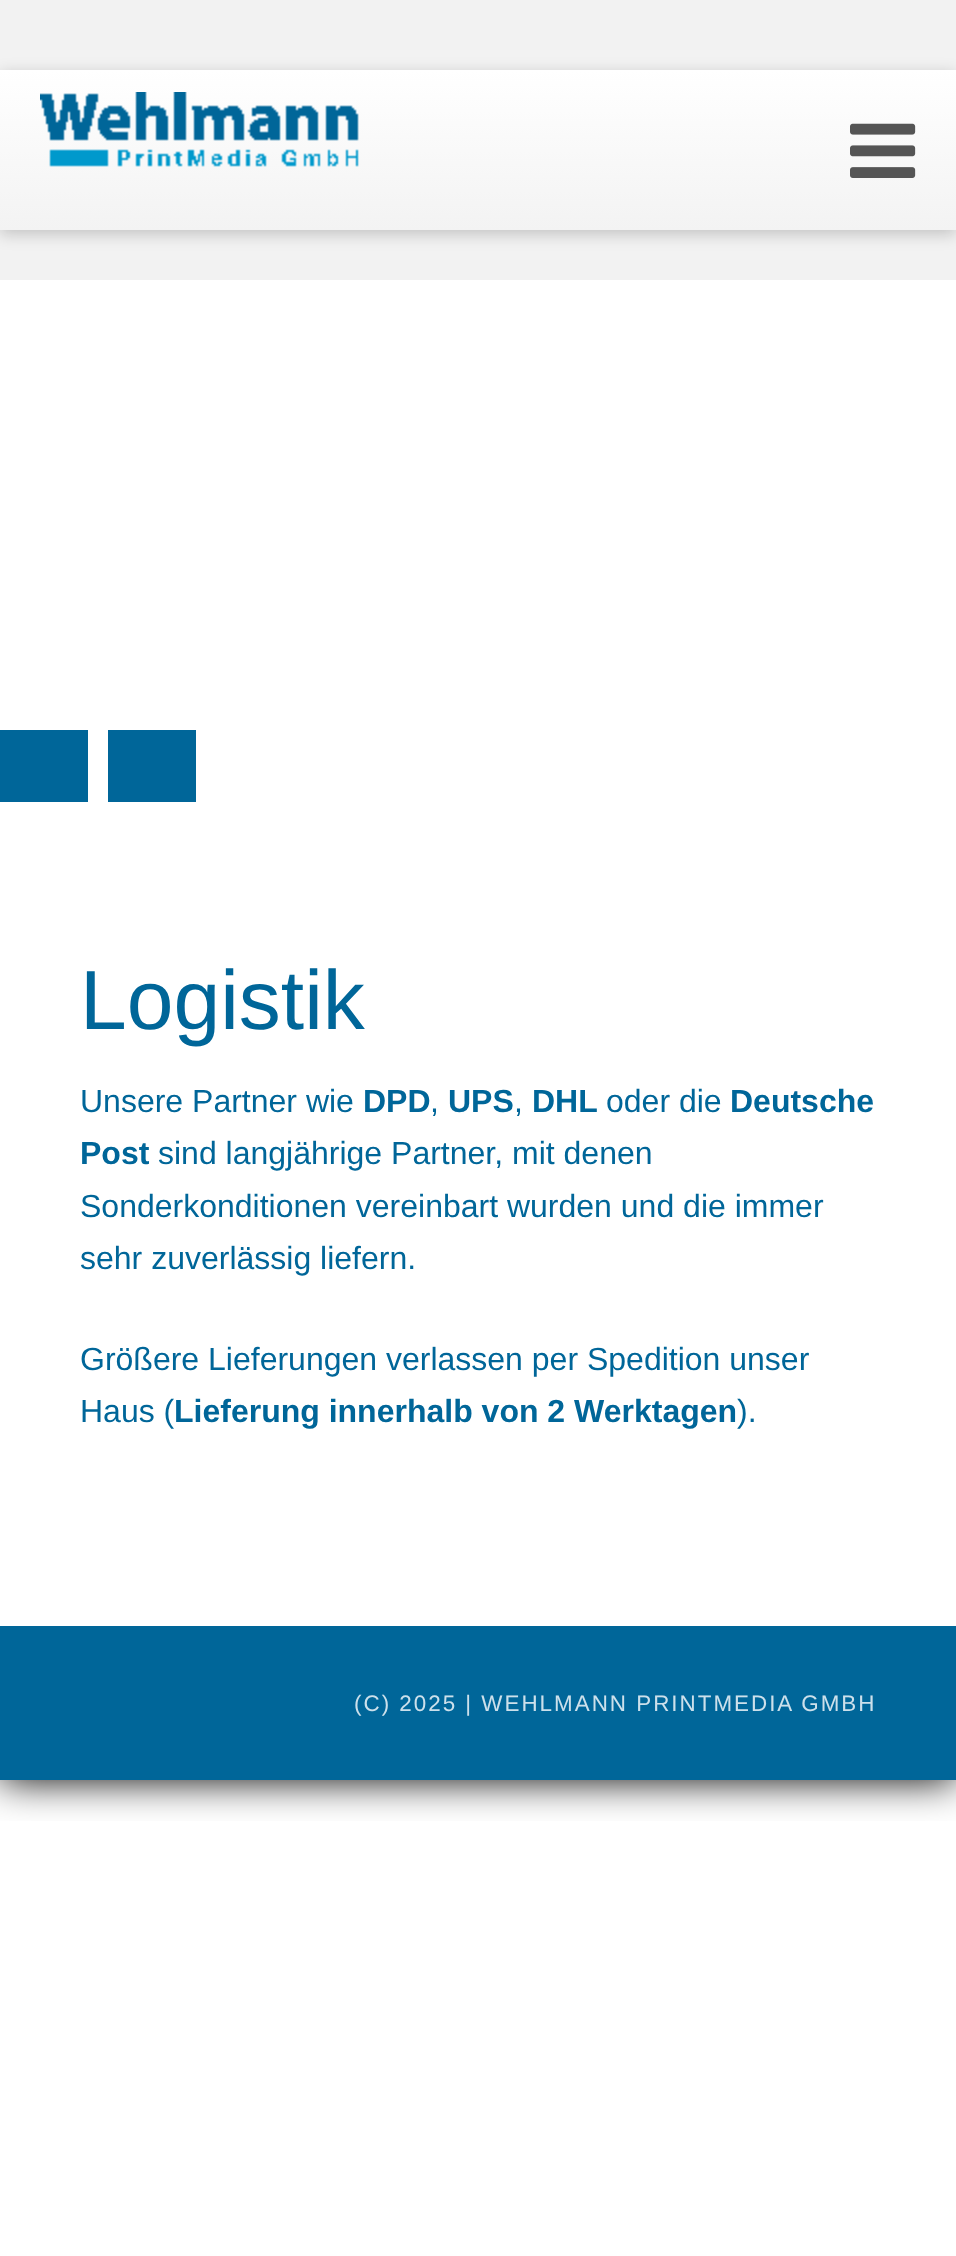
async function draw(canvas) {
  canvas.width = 956;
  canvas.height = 2256;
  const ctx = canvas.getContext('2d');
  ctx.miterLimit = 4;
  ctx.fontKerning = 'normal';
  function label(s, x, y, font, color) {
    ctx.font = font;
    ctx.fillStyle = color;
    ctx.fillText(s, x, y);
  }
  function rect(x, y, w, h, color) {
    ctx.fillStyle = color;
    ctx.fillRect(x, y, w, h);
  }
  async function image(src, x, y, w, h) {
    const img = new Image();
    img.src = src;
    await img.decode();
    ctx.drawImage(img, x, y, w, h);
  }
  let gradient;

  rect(0, 0, 956, 2256, '#fff');
  ctx.save();
  ctx.beginPath();
  ctx.rect(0, 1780, 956, 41);
  ctx.clip();
  ctx.fillStyle = '#000';
  ctx.filter = 'blur(20px)';
  ctx.beginPath();
  ctx.rect(0, 0, 956, 1780);
  ctx.fill();
  ctx.filter = 'none';
  ctx.restore();
  rect(0, 0, 956, 280, '#f2f2f2');
  ctx.fillStyle = '#00000033';
  ctx.filter = 'blur(8px)';
  ctx.beginPath();
  ctx.rect(0, 74, 956, 160);
  ctx.fill();
  ctx.filter = 'none';
  gradient = ctx.createLinearGradient(478, 70, 478, 230);
  gradient.addColorStop(0, '#fff');
  gradient.addColorStop(1, '#f3f3f3');
  ctx.fillStyle = gradient;
  ctx.fillRect(0, 70, 956, 160);
  await image('assets/img1.png', 40, 92, 319, 75);
  await image('assets/img2.png', 850, 123, 66, 55);
  rect(0, 730, 88, 72, '#069');
  rect(108, 730, 88, 72, '#069');
  label('Logistik', 80, 1029, '84px Liberation Sans', '#069');
  label('Unsere Partner wie', 80, 1112, '32px Liberation Sans', '#069');
  label('DPD', 363, 1112, 'bold 32px Liberation Sans', '#069');
  label(',', 430, 1112, '32px Liberation Sans', '#069');
  label('UPS', 448, 1112, 'bold 32px Liberation Sans', '#069');
  label(',', 514, 1112, '32px Liberation Sans', '#069');
  label('DHL', 532, 1112, 'bold 32px Liberation Sans', '#069');
  label('oder die', 606, 1112, '32px Liberation Sans', '#069');
  label('Deutsche', 730, 1112, 'bold 32px Liberation Sans', '#069');
  label('Post', 80, 1164, 'bold 32px Liberation Sans', '#069');
  label('sind langjährige Partner, mit denen', 158, 1164, '32px Liberation Sans', '#069');
  label('Sonderkonditionen vereinbart wurden und die immer', 80, 1217, '32px Liberation Sans', '#069');
  label('sehr zuverlässig liefern.', 80, 1269, '32px Liberation Sans', '#069');
  label('Größere Lieferungen verlassen per Spedition unser', 80, 1370, '32px Liberation Sans', '#069');
  label('Haus (', 80, 1422, '32px Liberation Sans', '#069');
  label('Lieferung innerhalb von 2 Werktagen', 174, 1422, 'bold 32px Liberation Sans', '#069');
  label(').', 737, 1422, '32px Liberation Sans', '#069');
  rect(0, 1626, 956, 154, '#069');
  ctx.letterSpacing = '2px';
  label('(C) 2025 | WEHLMANN PRINTMEDIA GMBH', 354, 1711, '22.4px Liberation Sans', '#cce0eb');
}

draw(document.querySelector('canvas'));
